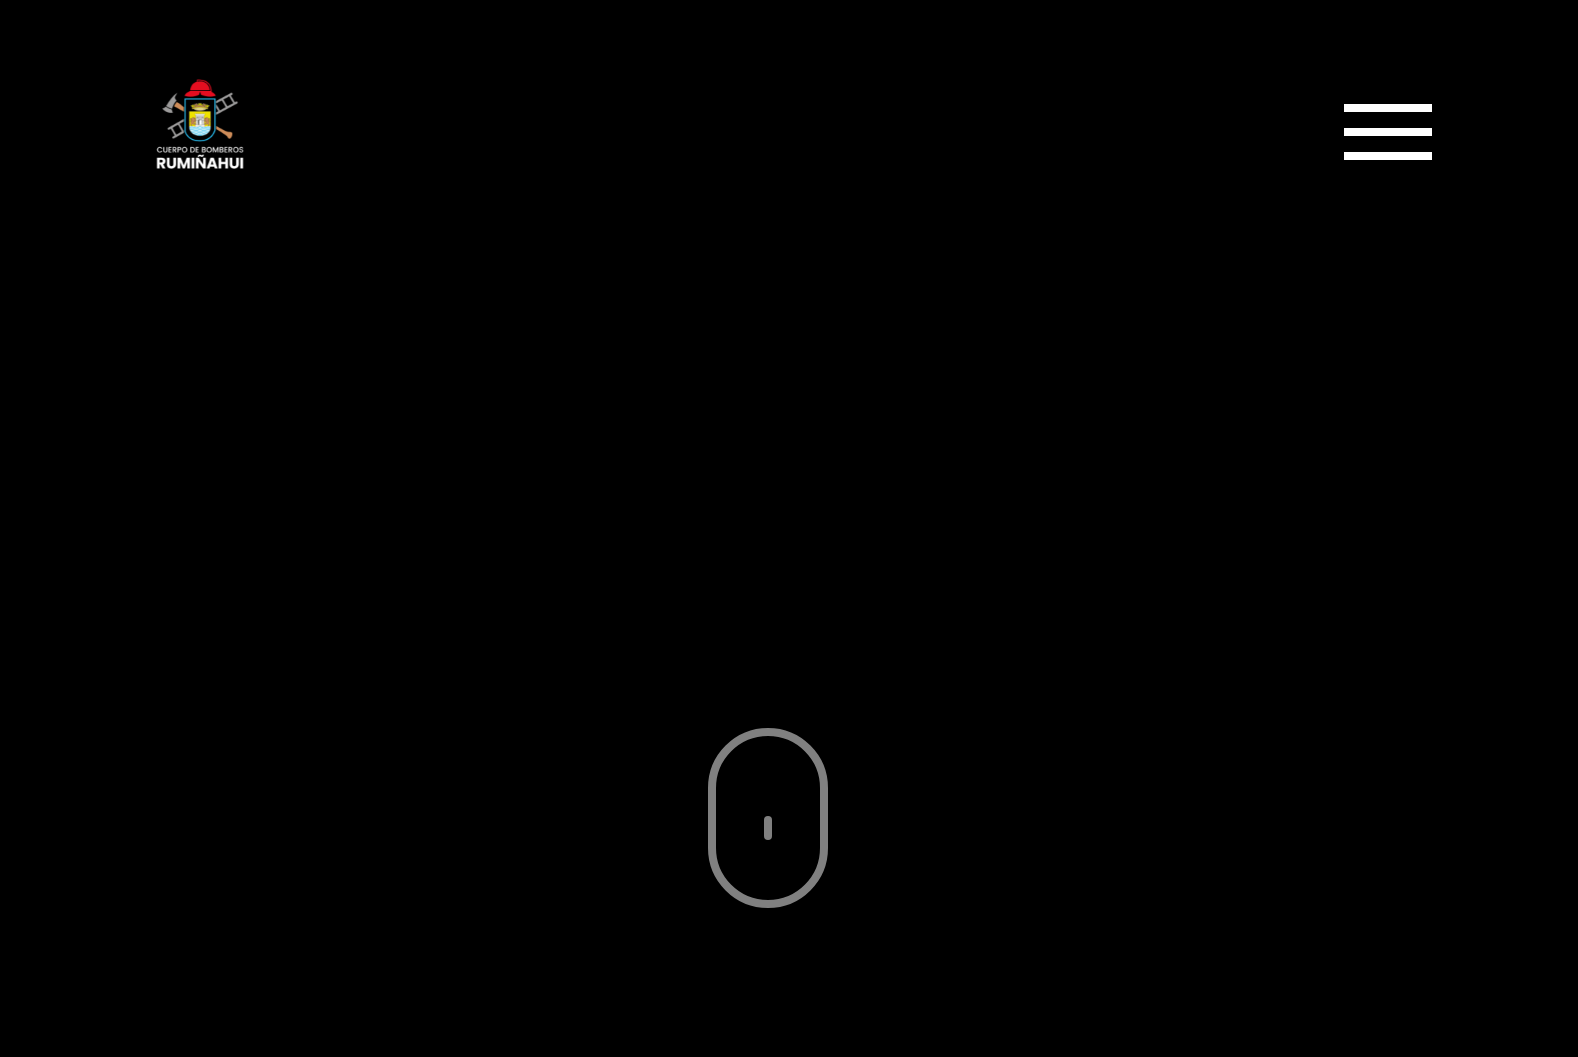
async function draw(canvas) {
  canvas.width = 1578;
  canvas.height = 1057;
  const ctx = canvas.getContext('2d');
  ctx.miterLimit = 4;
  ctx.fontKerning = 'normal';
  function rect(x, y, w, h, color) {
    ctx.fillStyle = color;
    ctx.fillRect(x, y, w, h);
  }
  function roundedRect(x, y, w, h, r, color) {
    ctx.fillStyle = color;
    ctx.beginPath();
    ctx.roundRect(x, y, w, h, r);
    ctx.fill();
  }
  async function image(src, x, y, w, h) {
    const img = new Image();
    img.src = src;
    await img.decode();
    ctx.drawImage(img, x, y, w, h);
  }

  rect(0, 0, 1578, 1057, '#000');
  await image('assets/img1.png', 156, 79, 88, 90);
  rect(1344, 104, 88, 8, '#fff');
  rect(1344, 152, 88, 8, '#fff');
  rect(1344, 128, 88, 8, '#fff');
  roundedRect(764, 816, 8, 24, 4, '#808080');
  ctx.beginPath();
  ctx.roundRect(712, 732, 112, 172, 56);
  ctx.strokeStyle = '#808080';
  ctx.lineWidth = 8;
  ctx.stroke();
}

draw(document.querySelector('canvas'));
